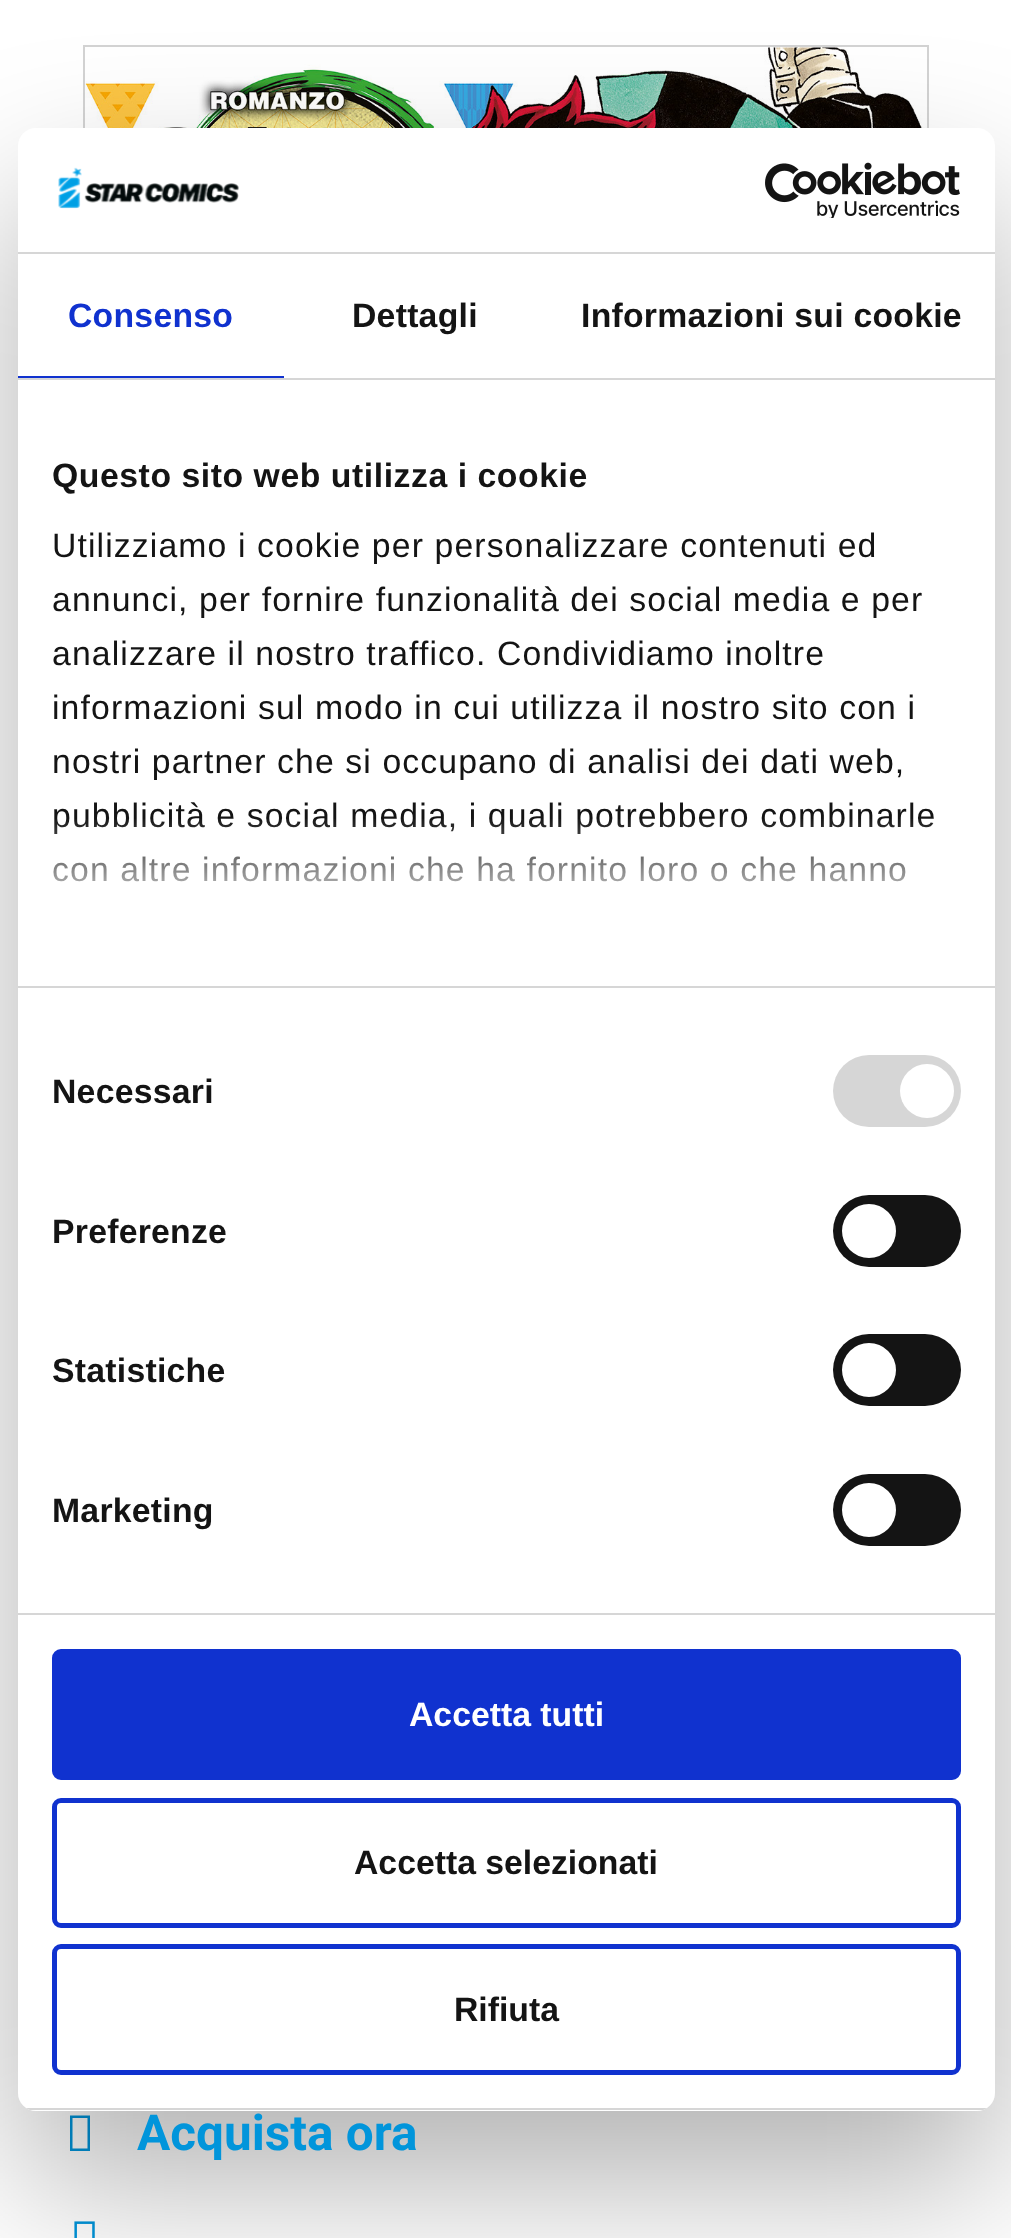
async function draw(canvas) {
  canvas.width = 1011;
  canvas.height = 2238;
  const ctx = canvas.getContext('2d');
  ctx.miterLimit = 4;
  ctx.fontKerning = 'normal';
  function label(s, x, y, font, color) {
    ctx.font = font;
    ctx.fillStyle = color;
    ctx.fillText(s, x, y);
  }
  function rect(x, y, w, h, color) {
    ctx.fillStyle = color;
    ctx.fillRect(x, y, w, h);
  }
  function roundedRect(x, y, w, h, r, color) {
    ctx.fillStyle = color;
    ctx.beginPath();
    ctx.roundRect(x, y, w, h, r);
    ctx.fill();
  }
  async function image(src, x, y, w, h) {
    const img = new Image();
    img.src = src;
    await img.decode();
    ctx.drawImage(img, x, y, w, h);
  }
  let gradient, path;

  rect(0, 0, 1011, 2238, '#fff');
  ctx.strokeStyle = '#d3d3d3';
  ctx.lineWidth = 2;
  ctx.strokeRect(84, 46, 844, 1224);
  await image('assets/img3.png', 85, 47, 842, 81);
  ctx.fillStyle = '#0195db';
  path = new Path2D('M70 2151V2115.5H90V2151ZM72.5 2148.5H87.5V2118H72.5Z');
  ctx.fill(path);
  await image('assets/img4.png', 74, 2221, 21, 17);
  ctx.fillStyle = '#0000004d';
  ctx.filter = 'blur(76.5px)';
  ctx.beginPath();
  ctx.roundRect(18, 200, 977, 1983, 18);
  ctx.fill();
  ctx.filter = 'none';
  roundedRect(18, 128, 977, 1983, 18, '#fff');
  rect(18, 252, 977, 2, '#d6d6d6');
  await image('assets/img1.png', 58, 167, 181, 42);
  await image('assets/img2.png', 765, 162, 195, 56);
  rect(18, 378, 977, 2, '#d6d6d6');
  rect(18, 376, 266, 2, '#1032cf');
  ctx.letterSpacing = '0.25px';
  label('Consenso', 68, 327, 'bold 33.75px Liberation Sans', '#1032cf');
  label('Dettagli', 352, 327, 'bold 33.75px Liberation Sans', '#141414');
  label('Informazioni sui cookie', 581, 327, 'bold 33.75px Liberation Sans', '#141414');
  rect(18, 986, 977, 2, '#d6d6d6');
  ctx.letterSpacing = '0.55px';
  label('Questo sito web utilizza i cookie', 52, 487, 'bold 33.75px Liberation Sans', '#141414');
  ctx.letterSpacing = '1.12px';
  label('Utilizziamo i cookie per personalizzare contenuti ed', 52, 557, '33.75px Liberation Sans', '#141414');
  label('annunci, per fornire funzionalità dei social media e per', 52, 611, '33.75px Liberation Sans', '#141414');
  label('analizzare il nostro traffico. Condividiamo inoltre', 52, 665, '33.75px Liberation Sans', '#141414');
  label('informazioni sul modo in cui utilizza il nostro sito con i', 52, 719, '33.75px Liberation Sans', '#141414');
  label('nostri partner che si occupano di analisi dei dati web,', 52, 773, '33.75px Liberation Sans', '#141414');
  label('pubblicità e social media, i quali potrebbero combinarle', 52, 827, '33.75px Liberation Sans', '#141414');
  label('con altre informazioni che ha fornito loro o che hanno', 52, 881, '33.75px Liberation Sans', '#141414');
  gradient = ctx.createLinearGradient(492, 986, 492, 817);
  gradient.addColorStop(0, '#fff');
  gradient.addColorStop(0.5, '#ffffffcc');
  gradient.addColorStop(1, '#ffffff00');
  ctx.fillStyle = gradient;
  ctx.fillRect(53, 819, 880, 63);
  rect(18, 1613, 977, 2, '#d6d6d6');
  ctx.letterSpacing = '0.25px';
  label('Necessari', 52, 1103, 'bold 33.75px Liberation Sans', '#141414');
  roundedRect(833, 1055, 128, 72, 36, '#d6d6d6');
  ctx.fillStyle = '#fff';
  ctx.beginPath();
  ctx.arc(927, 1091, 27, 0, 2 * Math.PI);
  ctx.fill();
  label('Preferenze', 52, 1243, 'bold 33.75px Liberation Sans', '#141414');
  roundedRect(833, 1195, 128, 72, 36, '#141414');
  ctx.fillStyle = '#fff';
  ctx.beginPath();
  ctx.arc(869, 1231, 27, 0, 2 * Math.PI);
  ctx.fill();
  label('Statistiche', 52, 1382, 'bold 33.75px Liberation Sans', '#141414');
  roundedRect(833, 1334, 128, 72, 36, '#141414');
  ctx.fillStyle = '#fff';
  ctx.beginPath();
  ctx.arc(869, 1370, 27, 0, 2 * Math.PI);
  ctx.fill();
  label('Marketing', 52, 1522, 'bold 33.75px Liberation Sans', '#141414');
  roundedRect(833, 1474, 128, 72, 36, '#141414');
  ctx.fillStyle = '#fff';
  ctx.beginPath();
  ctx.arc(869, 1510, 27, 0, 2 * Math.PI);
  ctx.fill();
  ctx.save();
  ctx.beginPath();
  ctx.roundRect(18, 128, 977, 1983, 18);
  ctx.clip();
  rect(18, 2108, 977, 2, '#d6d6d6');
  ctx.restore();
  ctx.fillStyle = '#1032cf';
  ctx.beginPath();
  ctx.roundRect(54.5, 1651.5, 904, 126, 6.5);
  ctx.fill();
  ctx.strokeStyle = '#1032cf';
  ctx.lineWidth = 5;
  ctx.stroke();
  ctx.letterSpacing = '0px';
  label('Accetta tutti', 409, 1726, 'bold 33.75px Liberation Sans', '#fff');
  ctx.beginPath();
  ctx.roundRect(54.5, 1800.5, 904, 125, 6.5);
  ctx.stroke();
  label('Accetta selezionati', 354, 1874, 'bold 33.75px Liberation Sans', '#141414');
  ctx.beginPath();
  ctx.roundRect(54.5, 1946.5, 904, 126, 6.5);
  ctx.stroke();
  label('Rifiuta', 454, 2021, 'bold 33.75px Liberation Sans', '#141414');
  label('Acquista ora', 137, 2150, 'bold 49.5px Roboto', '#0195db');
}

draw(document.querySelector('canvas'));
